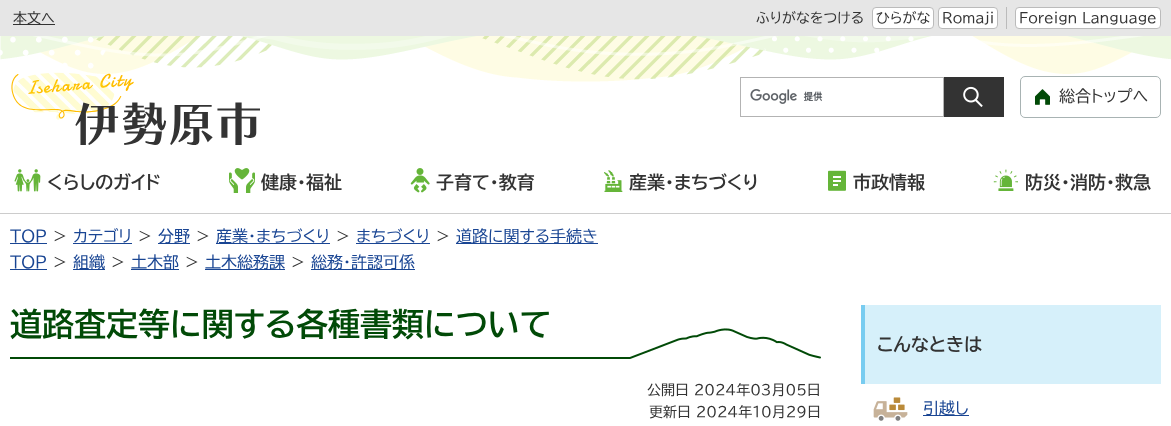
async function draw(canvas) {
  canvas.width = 1171;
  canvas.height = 426;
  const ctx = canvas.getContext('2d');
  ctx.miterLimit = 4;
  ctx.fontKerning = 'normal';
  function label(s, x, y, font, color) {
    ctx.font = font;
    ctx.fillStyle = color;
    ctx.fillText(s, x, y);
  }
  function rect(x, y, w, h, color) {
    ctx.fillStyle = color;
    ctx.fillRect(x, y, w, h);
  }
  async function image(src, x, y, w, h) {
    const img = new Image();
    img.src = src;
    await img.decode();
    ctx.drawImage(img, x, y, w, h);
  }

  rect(0, 0, 1171, 426, '#fff');
  rect(0, 0, 1171, 36, '#e6e6e6');
  rect(13, 24, 42, 1, '#333');
  label('本文へ', 13, 23, '14px BIZ UDPGothic', '#333');
  label('ふりがなをつける', 756, 23, '14px BIZ UDPGothic', '#333');
  ctx.fillStyle = '#fff';
  ctx.beginPath();
  ctx.roundRect(872.5, 7.5, 61, 21, 3.5);
  ctx.fill();
  ctx.strokeStyle = '#bbb';
  ctx.stroke();
  label('ひらがな', 876, 23, '14px BIZ UDPGothic', '#333');
  ctx.fillStyle = '#fff';
  ctx.beginPath();
  ctx.roundRect(938.5, 7.5, 59, 21, 3.5);
  ctx.fill();
  ctx.stroke();
  label('Romaji', 942, 23, '14px BIZ UDPGothic', '#333');
  rect(1006, 7, 1, 22, '#bbb');
  ctx.fillStyle = '#fff';
  ctx.beginPath();
  ctx.roundRect(1015.5, 7.5, 145, 21, 3.5);
  ctx.fill();
  ctx.stroke();
  label('Foreign Language', 1019, 23, '14px BIZ UDPGothic', '#333');
  await image('assets/img1.png', 0, 36, 1171, 46);
  await image('assets/img2.png', 11, 72, 249, 73);
  await image('assets/img3.png', 750, 89, 73, 15);
  ctx.strokeStyle = '#b3b3b3';
  ctx.strokeRect(740.5, 77.5, 203, 39);
  rect(944, 77, 60, 40, '#333');
  await image('assets/img4.png', 963, 86, 20, 21);
  await image('assets/img5.png', 1035, 89, 15, 16);
  ctx.beginPath();
  ctx.roundRect(1020.5, 76.5, 140, 41, 4.5);
  ctx.strokeStyle = '#a8b3b3';
  ctx.stroke();
  label('総合トップへ', 1059, 102, '16px BIZ UDPGothic', '#333');
  rect(0, 213, 1171, 1, '#ccc');
  await image('assets/img6.png', 14, 169, 27, 23);
  label('くらしのガイド', 47, 189, 'bold 18px BIZ UDPGothic', '#333');
  await image('assets/img7.png', 229, 168, 26, 25);
  label('健康・福祉', 261, 189, 'bold 18px BIZ UDPGothic', '#333');
  await image('assets/img8.png', 410, 168, 20, 25);
  label('子育て・教育', 436, 189, 'bold 18px BIZ UDPGothic', '#333');
  await image('assets/img9.png', 604, 170, 19, 22);
  label('産業・まちづくり', 629, 189, 'bold 18px BIZ UDPGothic', '#333');
  await image('assets/img10.png', 828, 170, 18, 21);
  label('市政情報', 853, 189, 'bold 18px BIZ UDPGothic', '#333');
  await image('assets/img11.png', 993, 169, 25, 22);
  label('防災・消防・救急', 1025, 189, 'bold 18px BIZ UDPGothic', '#333');
  label('TOP', 10, 242, '16px BIZ UDPGothic', '#194593');
  rect(10, 243, 37, 1, '#194593');
  label('＞', 52, 242, '16px BIZ UDPGothic', '#333');
  label('カテゴリ', 73, 242, '16px BIZ UDPGothic', '#194593');
  rect(73, 243, 59, 1, '#194593');
  label('＞', 137, 242, '16px BIZ UDPGothic', '#333');
  rect(158, 243, 32, 1, '#194593');
  label('分野', 158, 242, '16px BIZ UDPGothic', '#194593');
  label('＞', 195, 242, '16px BIZ UDPGothic', '#333');
  rect(216, 243, 114, 1, '#194593');
  label('産業・まちづくり', 216, 242, '16px BIZ UDPGothic', '#194593');
  label('＞', 335, 242, '16px BIZ UDPGothic', '#333');
  label('まちづくり', 356, 242, '16px BIZ UDPGothic', '#194593');
  rect(356, 243, 74, 1, '#194593');
  label('＞', 435, 242, '16px BIZ UDPGothic', '#333');
  rect(456, 243, 142, 1, '#194593');
  label('道路に関する手続き', 456, 242, '16px BIZ UDPGothic', '#194593');
  label('TOP', 10, 268, '16px BIZ UDPGothic', '#194593');
  rect(10, 269, 37, 1, '#194593');
  label('＞', 52, 268, '16px BIZ UDPGothic', '#333');
  rect(73, 269, 32, 1, '#194593');
  label('組織', 73, 268, '16px BIZ UDPGothic', '#194593');
  label('＞', 110, 268, '16px BIZ UDPGothic', '#333');
  rect(131, 269, 48, 1, '#194593');
  label('土木部', 131, 268, '16px BIZ UDPGothic', '#194593');
  label('＞', 184, 268, '16px BIZ UDPGothic', '#333');
  rect(205, 269, 80, 1, '#194593');
  label('土木総務課', 205, 268, '16px BIZ UDPGothic', '#194593');
  label('＞', 290, 268, '16px BIZ UDPGothic', '#333');
  rect(311, 269, 104, 1, '#194593');
  label('総務・許認可係', 311, 268, '16px BIZ UDPGothic', '#194593');
  await image('assets/img12.png', 10, 328, 811, 31);
  label('道路査定等に関する各種書類について', 10, 336, 'bold 32px BIZ UDPGothic', '#014a07');
  label('公開日 2024年03月05日', 647, 395, '14px BIZ UDPGothic', '#333');
  label('更新日 2024年10月29日', 649, 417, '14px BIZ UDPGothic', '#333');
  rect(865, 305, 296, 79, '#d6f0fa');
  rect(861, 305, 4, 79, '#78ccf0');
  label('こんなときは', 877, 351, 'bold 18px BIZ UDPGothic', '#333');
  await image('assets/img13.png', 873, 397, 35, 24);
  rect(923, 415, 46, 1, '#194593');
  label('引越し', 923, 414, '16px BIZ UDPGothic', '#194593');
}

draw(document.querySelector('canvas'));
